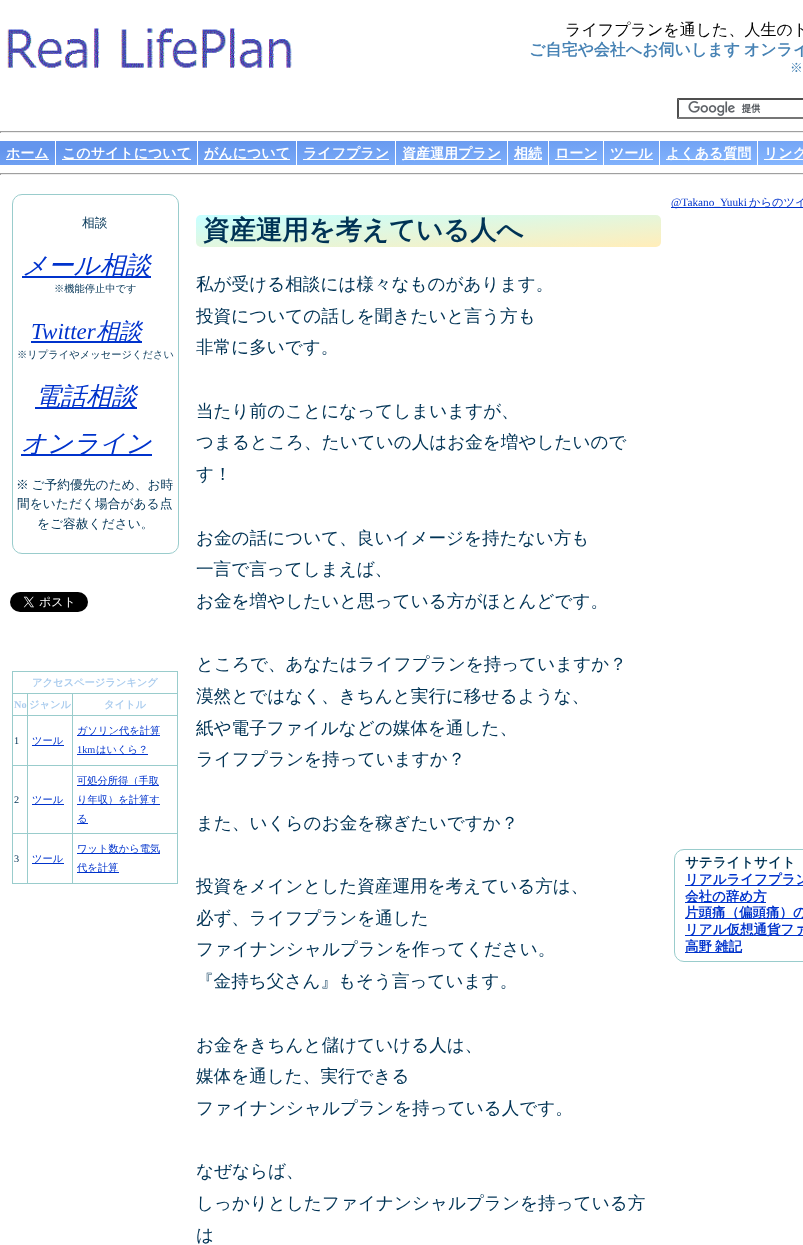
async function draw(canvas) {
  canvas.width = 803;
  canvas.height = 1245;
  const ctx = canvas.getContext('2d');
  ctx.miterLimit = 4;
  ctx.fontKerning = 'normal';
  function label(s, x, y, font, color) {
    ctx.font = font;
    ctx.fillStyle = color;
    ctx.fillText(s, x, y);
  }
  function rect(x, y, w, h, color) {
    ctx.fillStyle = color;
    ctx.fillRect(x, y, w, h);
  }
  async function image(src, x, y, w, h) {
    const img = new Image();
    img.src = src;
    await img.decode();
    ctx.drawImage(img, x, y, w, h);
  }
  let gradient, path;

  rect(0, 0, 803, 1245, '#fff');
  await image('assets/img1.png', 7, 28, 285, 40);
  label('ライフプランを通した、人生のト', 565, 35, '500 16px WenQuanYi Zen Hei', '#000');
  ctx.wordSpacing = '-1px';
  label('ご自宅や会社へお伺いします オンライ', 529, 55, 'bold 16px WenQuanYi Zen Hei', '#4682b4');
  label('※', 790, 72, '500 12.75px WenQuanYi Zen Hei', '#4682b4');
  await image('assets/img2.png', 688, 101, 73, 15);
  ctx.fillStyle = '#4f4f4f';
  path = new Path2D('M677 98H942L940 100H679Z');
  ctx.fill(path);
  ctx.fillStyle = '#767676';
  path = new Path2D('M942 119H677L679 117H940Z');
  ctx.fill(path);
  ctx.fillStyle = '#4f4f4f';
  path = new Path2D('M677 119V98L679 100V117Z');
  ctx.fill(path);
  rect(0, 131, 803, 1, '#9f9f9f');
  rect(0, 132, 803, 1, '#eee');
  rect(0, 131, 1, 2, '#9f9f9f');
  gradient = ctx.createLinearGradient(509, 129, 511, 177);
  gradient.addColorStop(0, '#6495ed');
  gradient.addColorStop(1, '#86b7ff');
  ctx.fillStyle = gradient;
  ctx.fillRect(0, 141, 803, 24);
  rect(55, 141, 1, 26, '#fff');
  rect(6, 159, 43, 1, '#fff');
  ctx.wordSpacing = '0px';
  label('ホーム', 6, 158, 'bold 14px WenQuanYi Zen Hei', '#fff');
  rect(197, 141, 1, 26, '#fff');
  rect(62, 159, 129, 1, '#fff');
  label('このサイトについて', 62, 158, 'bold 14px WenQuanYi Zen Hei', '#fff');
  rect(296, 141, 1, 26, '#fff');
  rect(204, 159, 86, 1, '#fff');
  label('がんについて', 204, 158, 'bold 14px WenQuanYi Zen Hei', '#fff');
  rect(395, 141, 1, 26, '#fff');
  rect(303, 159, 86, 1, '#fff');
  label('ライフプラン', 303, 158, 'bold 14px WenQuanYi Zen Hei', '#fff');
  rect(507, 141, 1, 26, '#fff');
  rect(402, 159, 99, 1, '#fff');
  label('資産運用プラン', 402, 158, 'bold 14px WenQuanYi Zen Hei', '#fff');
  rect(548, 141, 1, 26, '#fff');
  rect(514, 159, 28, 1, '#fff');
  label('相続', 514, 158, 'bold 14px WenQuanYi Zen Hei', '#fff');
  rect(603, 141, 1, 26, '#fff');
  label('ローン', 555, 158, 'bold 14px WenQuanYi Zen Hei', '#fff');
  rect(555, 159, 42, 1, '#fff');
  rect(659, 141, 1, 26, '#fff');
  rect(610, 159, 43, 1, '#fff');
  label('ツール', 610, 158, 'bold 14px WenQuanYi Zen Hei', '#fff');
  rect(757, 141, 1, 26, '#fff');
  rect(666, 159, 85, 1, '#fff');
  label('よくある質問', 666, 158, 'bold 14px WenQuanYi Zen Hei', '#fff');
  rect(764, 159, 39, 1, '#fff');
  label('リンク', 764, 158, 'bold 14px WenQuanYi Zen Hei', '#fff');
  rect(0, 173, 803, 1, '#9f9f9f');
  rect(0, 174, 803, 1, '#eee');
  rect(0, 173, 1, 2, '#9f9f9f');
  ctx.beginPath();
  ctx.roundRect(12.5, 194.5, 166, 359, 9.5);
  ctx.strokeStyle = '#9cc';
  ctx.stroke();
  label('相談', 82, 227, '500 12.75px WenQuanYi Zen Hei', '#035');
  rect(22, 276, 129, 2, '#03c');
  label('メール相談', 22, 274, 'italic 500 25.5px WenQuanYi Zen Hei', '#03c');
  label('※機能停止中です', 54, 292, '500 10.25px WenQuanYi Zen Hei', '#035');
  label('Twitter', 31, 339, 'italic 23px Liberation Serif', '#03c');
  rect(31, 341, 111, 2, '#03c');
  label('相談', 96, 339, 'italic 500 23px WenQuanYi Zen Hei', '#03c');
  label('※リプライやメッセージください', 17, 358, '500 10.25px WenQuanYi Zen Hei', '#035');
  rect(35, 407, 102, 2, '#03c');
  label('電話相談', 35, 405, 'italic 500 25.5px WenQuanYi Zen Hei', '#03c');
  rect(21, 454, 131, 2, '#03c');
  label('オンライン', 21, 452, 'italic 500 25.5px WenQuanYi Zen Hei', '#03c');
  ctx.wordSpacing = '-1px';
  label('※ ご予約優先のため、お時', 16, 489, '500 12.75px WenQuanYi Zen Hei', '#035');
  ctx.wordSpacing = '0px';
  label('間をいただく場合がある点', 17, 508, '500 12.75px WenQuanYi Zen Hei', '#035');
  label('をご容赦ください。', 37, 528, '500 12.75px WenQuanYi Zen Hei', '#035');
  await image('assets/img3.png', 10, 592, 78, 20);
  rect(12, 671, 166, 1, '#9cc');
  rect(177, 671, 1, 213, '#9cc');
  rect(12, 883, 166, 1, '#9cc');
  rect(12, 671, 1, 213, '#9cc');
  label('アクセスページランキング', 32, 686, 'bold 10.25px WenQuanYi Zen Hei', '#ace');
  rect(72, 693, 106, 1, '#9cc');
  rect(72, 715, 106, 1, '#9cc');
  rect(72, 765, 106, 1, '#9cc');
  rect(72, 833, 106, 1, '#9cc');
  rect(72, 833, 1, 51, '#9cc');
  rect(27, 833, 46, 1, '#9cc');
  rect(72, 765, 1, 69, '#9cc');
  rect(27, 765, 46, 1, '#9cc');
  rect(72, 715, 1, 51, '#9cc');
  rect(27, 715, 46, 1, '#9cc');
  rect(72, 693, 1, 23, '#9cc');
  rect(27, 693, 46, 1, '#9cc');
  rect(27, 833, 1, 51, '#9cc');
  rect(12, 833, 16, 1, '#9cc');
  rect(27, 765, 1, 69, '#9cc');
  rect(12, 765, 16, 1, '#9cc');
  rect(27, 715, 1, 51, '#9cc');
  rect(12, 715, 16, 1, '#9cc');
  rect(27, 693, 1, 23, '#9cc');
  rect(12, 693, 16, 1, '#9cc');
  label('No', 14, 708, 'bold 10.25px Liberation Serif', '#ace');
  label('ジャンル', 29, 708, 'bold 10.25px WenQuanYi Zen Hei', '#ace');
  label('タイトル', 104, 708, 'bold 10.25px WenQuanYi Zen Hei', '#ace');
  label('1', 14, 744, '10.25px Liberation Serif', '#035');
  label('ツール', 32, 744, '500 10.25px WenQuanYi Zen Hei', '#03c');
  rect(32, 745, 32, 1, '#03c');
  rect(77, 735, 83, 1, '#03c');
  label('ガソリン代を計算', 77, 734, '500 10.25px WenQuanYi Zen Hei', '#03c');
  label('1km', 77, 753, '10.25px Liberation Serif', '#03c');
  rect(77, 754, 71, 1, '#03c');
  label('はいくら？', 96, 753, '500 10.25px WenQuanYi Zen Hei', '#03c');
  label('2', 14, 803, '10.25px Liberation Serif', '#035');
  label('ツール', 32, 803, '500 10.25px WenQuanYi Zen Hei', '#03c');
  rect(32, 804, 32, 1, '#03c');
  rect(77, 785, 82, 1, '#03c');
  label('可処分所得（手取', 77, 784, '500 10.25px WenQuanYi Zen Hei', '#03c');
  rect(77, 804, 83, 1, '#03c');
  label('り年収）を計算す', 77, 803, '500 10.25px WenQuanYi Zen Hei', '#03c');
  rect(77, 823, 11, 1, '#03c');
  label('る', 77, 822, '500 10.25px WenQuanYi Zen Hei', '#03c');
  label('3', 14, 862, '10.25px Liberation Serif', '#035');
  label('ツール', 32, 862, '500 10.25px WenQuanYi Zen Hei', '#03c');
  rect(32, 863, 32, 1, '#03c');
  rect(77, 853, 83, 1, '#03c');
  label('ワット数から電気', 77, 852, '500 10.25px WenQuanYi Zen Hei', '#03c');
  rect(77, 872, 42, 1, '#03c');
  label('代を計算', 77, 871, '500 10.25px WenQuanYi Zen Hei', '#03c');
  gradient = ctx.createLinearGradient(426, 199, 431, 263);
  gradient.addColorStop(0, '#c8ffff');
  gradient.addColorStop(1, '#feb');
  ctx.fillStyle = gradient;
  ctx.beginPath();
  ctx.roundRect(196, 215, 465, 32, 5);
  ctx.fill();
  label('資産運用を考えている人へ', 203, 239, 'bold 26.4px WenQuanYi Zen Hei', '#035');
  label('私が受ける相談には様々なものがあります。', 196, 290, '500 17.6px WenQuanYi Zen Hei', '#035');
  label('投資についての話しを聞きたいと言う方も', 196, 322, '500 17.6px WenQuanYi Zen Hei', '#035');
  label('非常に多いです。', 196, 353, '500 17.6px WenQuanYi Zen Hei', '#035');
  label('当たり前のことになってしまいますが、', 196, 417, '500 17.6px WenQuanYi Zen Hei', '#035');
  label('つまるところ、たいていの人はお金を増やしたいので', 196, 448, '500 17.6px WenQuanYi Zen Hei', '#035');
  label('す！', 196, 480, '500 17.6px WenQuanYi Zen Hei', '#035');
  label('お金の話について、良いイメージを持たない方も', 196, 544, '500 17.6px WenQuanYi Zen Hei', '#035');
  label('一言で言ってしまえば、', 196, 575, '500 17.6px WenQuanYi Zen Hei', '#035');
  label('お金を増やしたいと思っている方がほとんどです。', 196, 607, '500 17.6px WenQuanYi Zen Hei', '#035');
  label('ところで、あなたはライフプランを持っていますか？', 196, 670, '500 17.6px WenQuanYi Zen Hei', '#035');
  label('漠然とではなく、きちんと実行に移せるような、', 196, 702, '500 17.6px WenQuanYi Zen Hei', '#035');
  label('紙や電子ファイルなどの媒体を通した、', 196, 734, '500 17.6px WenQuanYi Zen Hei', '#035');
  label('ライフプランを持っていますか？', 196, 765, '500 17.6px WenQuanYi Zen Hei', '#035');
  label('また、いくらのお金を稼ぎたいですか？', 196, 829, '500 17.6px WenQuanYi Zen Hei', '#035');
  label('投資をメインとした資産運用を考えている方は、', 196, 892, '500 17.6px WenQuanYi Zen Hei', '#035');
  label('必ず、ライフプランを通した', 196, 924, '500 17.6px WenQuanYi Zen Hei', '#035');
  label('ファイナンシャルプランを作ってください。', 196, 955, '500 17.6px WenQuanYi Zen Hei', '#035');
  label('『金持ち父さん』もそう言っています。', 196, 987, '500 17.6px WenQuanYi Zen Hei', '#035');
  label('お金をきちんと儲けていける人は、', 196, 1051, '500 17.6px WenQuanYi Zen Hei', '#035');
  label('媒体を通した、実行できる', 196, 1082, '500 17.6px WenQuanYi Zen Hei', '#035');
  label('ファイナンシャルプランを持っている人です。', 196, 1114, '500 17.6px WenQuanYi Zen Hei', '#035');
  label('なぜならば、', 196, 1177, '500 17.6px WenQuanYi Zen Hei', '#035');
  label('しっかりとしたファイナンシャルプランを持っている方', 196, 1209, '500 17.6px WenQuanYi Zen Hei', '#035');
  label('は', 196, 1241, '500 17.6px WenQuanYi Zen Hei', '#035');
  rect(671, 207, 132, 1, '#03c');
  label('@Takano_Yuuki', 671, 206, '11.25px Liberation Serif', '#03c');
  label('からのツイ', 749, 206, '500 11.25px WenQuanYi Zen Hei', '#03c');
  ctx.beginPath();
  ctx.roundRect(674.5, 849.5, 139, 112, 9.5);
  ctx.stroke();
  label('サテライトサイト', 685, 867, 'bold 13.5px WenQuanYi Zen Hei', '#035');
  rect(685, 885, 118, 1, '#03c');
  label('リアルライフプラン', 685, 884, 'bold 13.5px WenQuanYi Zen Hei', '#03c');
  rect(685, 902, 81, 1, '#03c');
  label('会社の辞め方', 685, 901, 'bold 13.5px WenQuanYi Zen Hei', '#03c');
  rect(685, 918, 118, 1, '#03c');
  label('片頭痛（偏頭痛）の', 685, 917, 'bold 13.5px WenQuanYi Zen Hei', '#03c');
  rect(685, 935, 118, 1, '#03c');
  label('リアル仮想通貨ファ', 685, 934, 'bold 13.5px WenQuanYi Zen Hei', '#03c');
  rect(685, 952, 57, 1, '#03c');
  ctx.wordSpacing = '-1px';
  label('高野 雑記', 685, 951, 'bold 13.5px WenQuanYi Zen Hei', '#03c');
}

draw(document.querySelector('canvas'));
